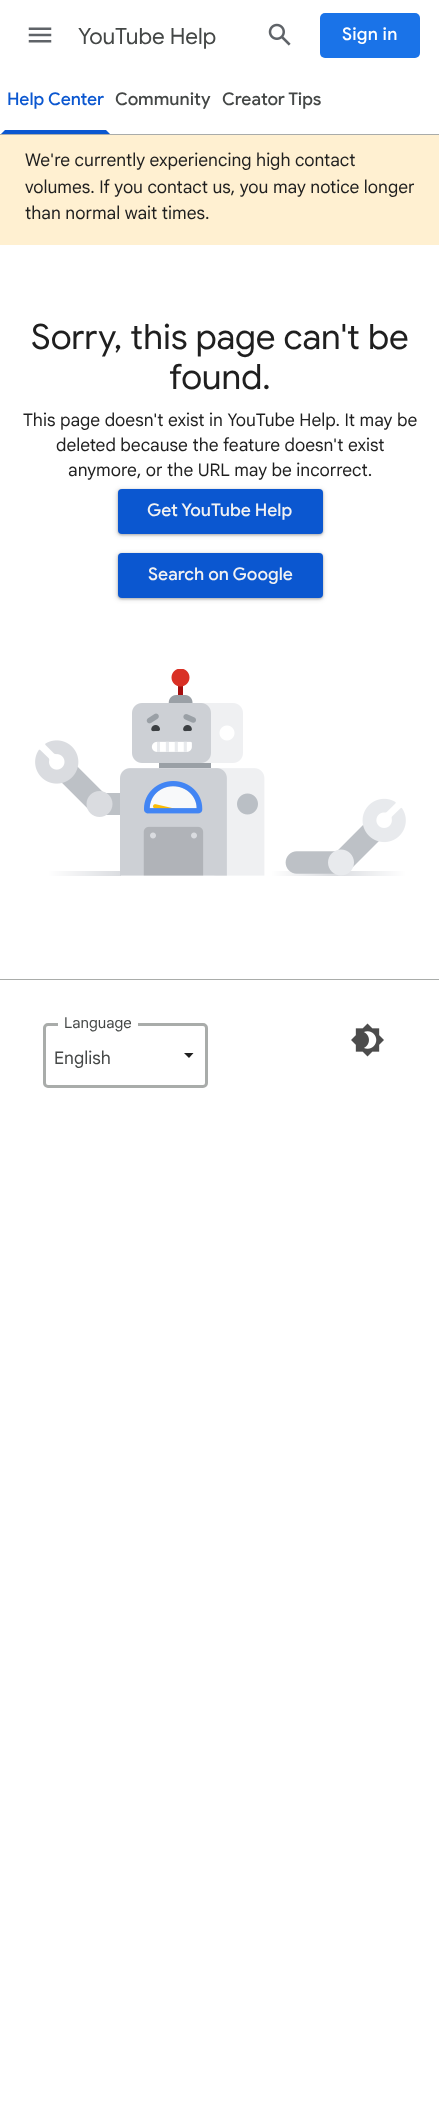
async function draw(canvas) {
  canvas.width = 439;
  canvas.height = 2121;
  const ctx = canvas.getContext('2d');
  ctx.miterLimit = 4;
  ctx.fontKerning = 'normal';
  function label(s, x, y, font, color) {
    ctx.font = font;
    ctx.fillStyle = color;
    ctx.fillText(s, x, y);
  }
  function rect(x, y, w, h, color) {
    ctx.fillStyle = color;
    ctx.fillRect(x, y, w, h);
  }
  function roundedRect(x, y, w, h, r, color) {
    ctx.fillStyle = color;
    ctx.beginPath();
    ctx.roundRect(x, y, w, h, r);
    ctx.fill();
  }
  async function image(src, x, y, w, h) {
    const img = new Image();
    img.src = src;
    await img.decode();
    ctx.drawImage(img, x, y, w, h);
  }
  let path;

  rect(0, 0, 439, 2121, '#fff');
  await image('assets/img1.png', 28, 27, 24, 16);
  label('YouTube Help', 78, 44, '22.5px Google Sans', '#444746');
  await image('assets/img2.png', 268, 23, 23, 23);
  roundedRect(320, 13, 100, 45, 5, '#1a73e8');
  ctx.letterSpacing = '0.25px';
  label('Sign in', 342, 40, '500 17.5px Google Sans', '#fff');
  rect(0, 134, 439, 1, '#a9acaa');
  ctx.fillStyle = '#0b57d0';
  path = new Path2D('M110 134H1L5 130H106Z');
  ctx.fill(path);
  ctx.letterSpacing = '0px';
  label('Help Center', 7, 105, '500 17.5px Google Sans', '#0b57d0');
  label('Community', 115, 105, '500 17.5px Google Sans', '#444746');
  label('Creator Tips', 222, 105, '500 17.5px Google Sans', '#444746');
  rect(0, 135, 439, 110, '#fff0d1');
  label('We\'re currently experiencing high contact', 25, 166, '17.5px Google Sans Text', '#1f1f1f');
  label('volumes. If you contact us, you may notice longer', 25, 193, '17.5px Google Sans Text', '#1f1f1f');
  label('than normal wait times.', 25, 219, '17.5px Google Sans Text', '#1f1f1f');
  label('Sorry, this page can\'t be', 31, 349, '35px Google Sans', '#1f1f1f');
  label('found.', 169, 389, '35px Google Sans', '#1f1f1f');
  label('This page doesn\'t exist in YouTube Help. It may be', 23, 426, '17.5px Google Sans Text', '#1f1f1f');
  label('deleted because the feature doesn\'t exist', 56, 451, '17.5px Google Sans Text', '#1f1f1f');
  label('anymore, or the URL may be incorrect.', 68, 476, '17.5px Google Sans Text', '#1f1f1f');
  ctx.fillStyle = '#30303026';
  ctx.filter = 'blur(2px)';
  ctx.beginPath();
  ctx.roundRect(116, 489, 208, 47, 5);
  ctx.fill();
  ctx.filter = 'none';
  ctx.fillStyle = '#3030304d';
  ctx.filter = 'blur(1px)';
  ctx.beginPath();
  ctx.roundRect(118, 490, 205, 45, 4);
  ctx.fill();
  ctx.filter = 'none';
  roundedRect(118, 489, 205, 45, 4, '#0b57d0');
  label('Get YouTube Help', 147, 516, '500 17.5px Google Sans', '#f2f2f2');
  ctx.fillStyle = '#30303026';
  ctx.filter = 'blur(2px)';
  ctx.beginPath();
  ctx.roundRect(116, 553, 208, 47, 5);
  ctx.fill();
  ctx.filter = 'none';
  ctx.fillStyle = '#3030304d';
  ctx.filter = 'blur(1px)';
  ctx.beginPath();
  ctx.roundRect(118, 554, 205, 45, 4);
  ctx.fill();
  ctx.filter = 'none';
  roundedRect(118, 553, 205, 45, 4, '#0b57d0');
  label('Search on Google', 148, 580, '500 17.5px Google Sans', '#f2f2f2');
  await image('assets/img3.png', 35, 669, 371, 207);
  rect(0, 979, 439, 1, '#a9acaa');
  ctx.beginPath();
  ctx.roundRect(44.5, 1024.5, 162, 62, 3.5);
  ctx.strokeStyle = '#a9acaa';
  ctx.lineWidth = 3;
  ctx.stroke();
  rect(58, 1023, 80, 3, '#fff');
  label('Language', 64, 1028, '15px Google Sans Text', '#444746');
  label('English', 54, 1064, '17.5px Google Sans Text', '#444746');
  ctx.fillStyle = '#1f1f1f';
  path = new Path2D('M184 1053L189 1058L193.5 1053Z');
  ctx.fill(path);
  await image('assets/img4.png', 351, 1023, 33, 34);
}

draw(document.querySelector('canvas'));
